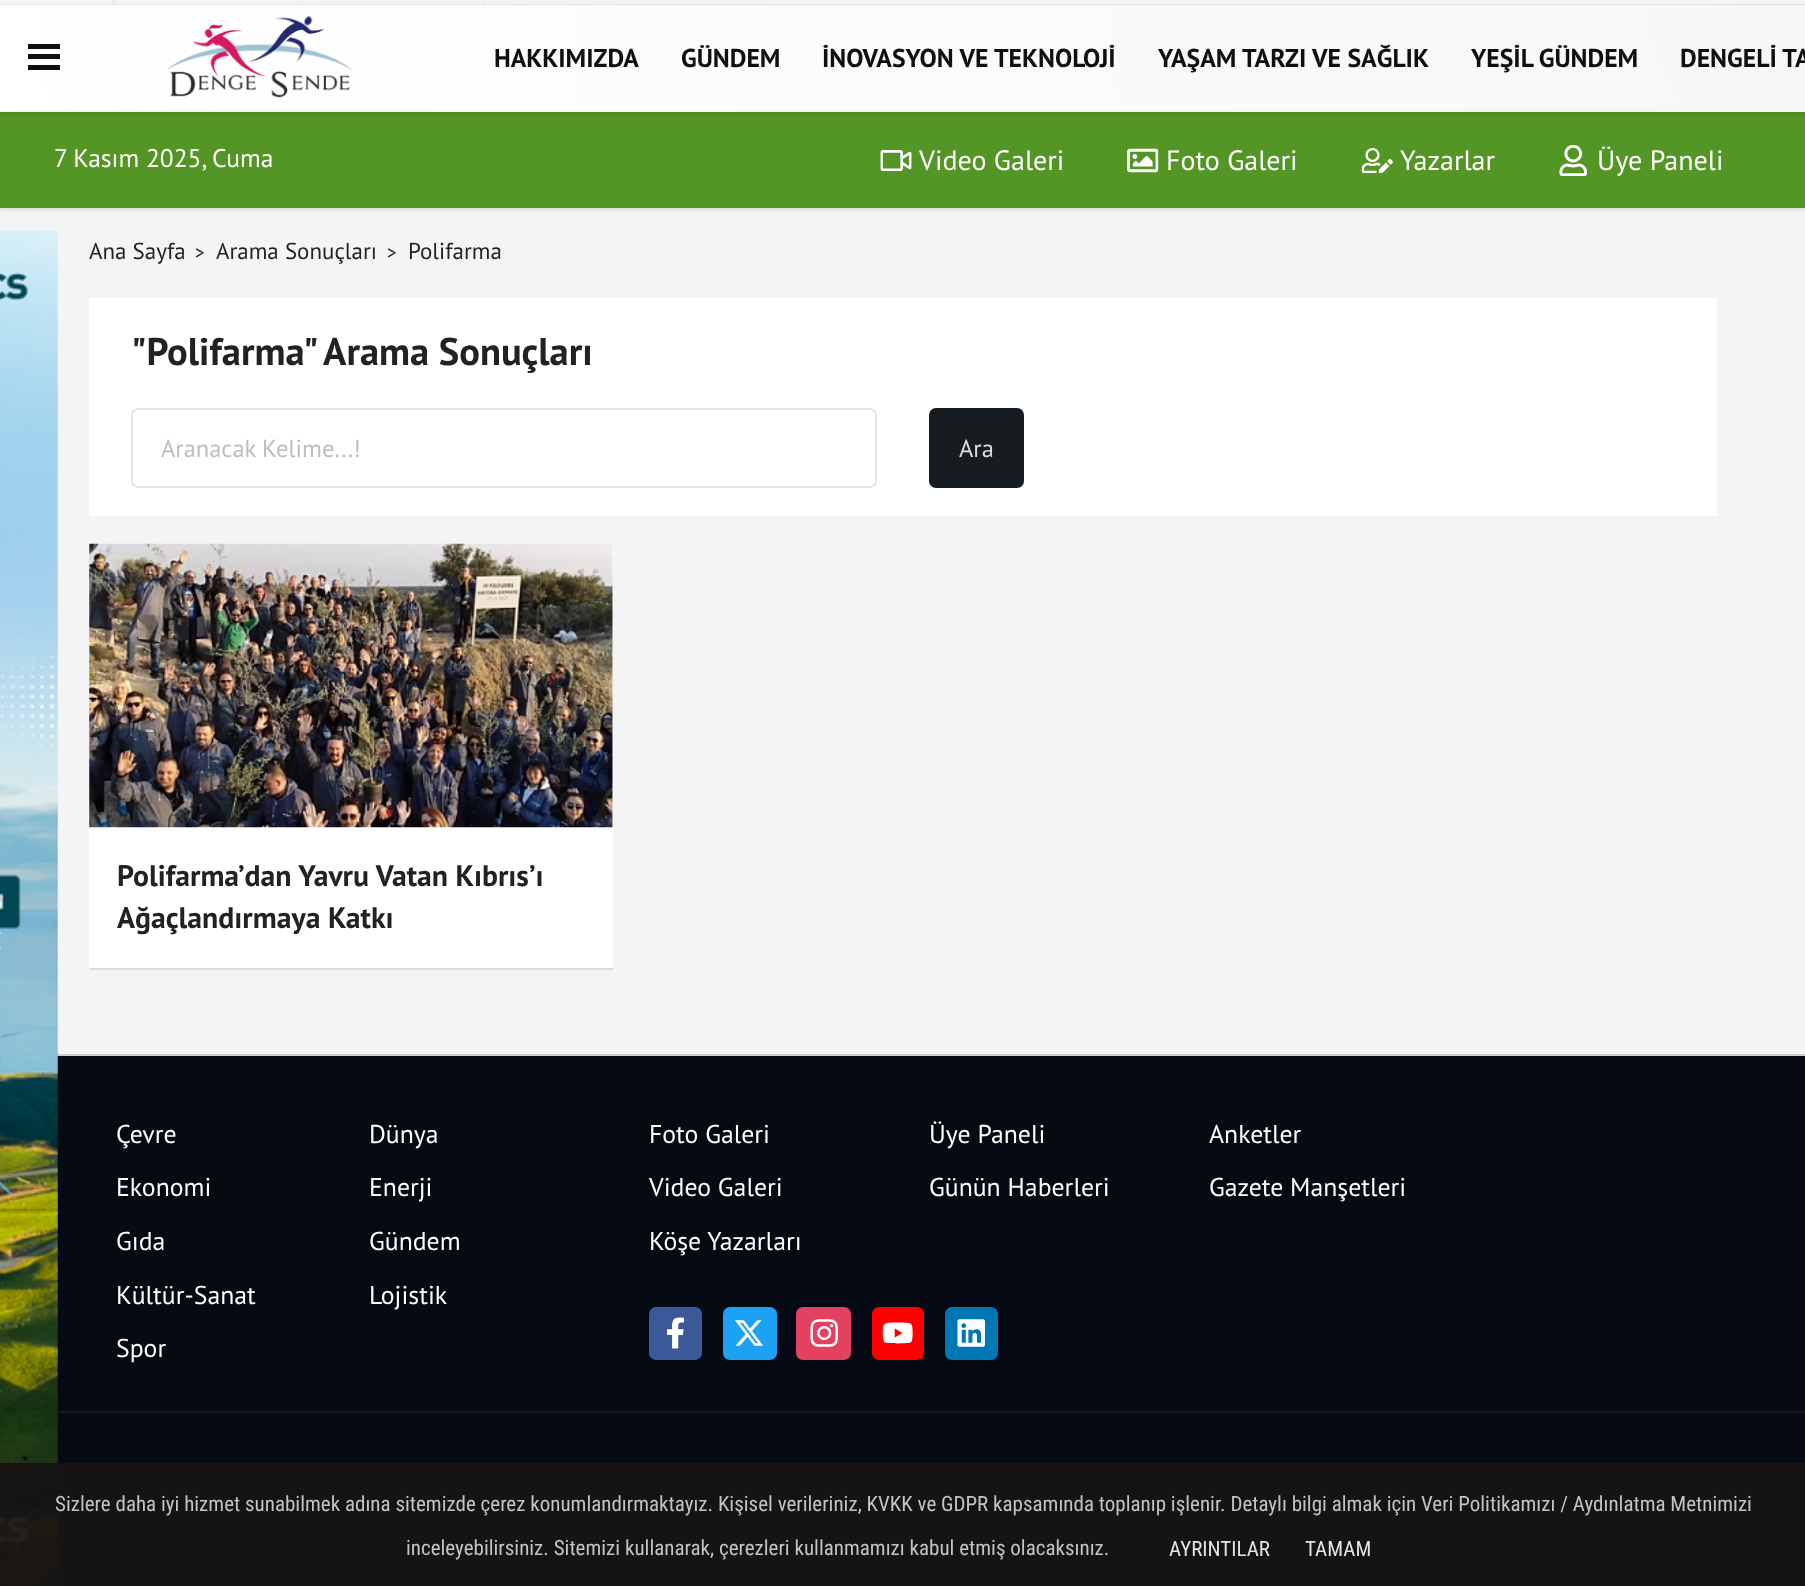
async function draw(canvas) {
  canvas.width = 1805;
  canvas.height = 1586;
  const ctx = canvas.getContext('2d');
  ctx.miterLimit = 4;
  ctx.fontKerning = 'normal';
  function label(s, x, y, font, color) {
    ctx.font = font;
    ctx.fillStyle = color;
    ctx.fillText(s, x, y);
  }
  function rect(x, y, w, h, color) {
    ctx.fillStyle = color;
    ctx.fillRect(x, y, w, h);
  }
  function roundedRect(x, y, w, h, r, color) {
    ctx.fillStyle = color;
    ctx.beginPath();
    ctx.roundRect(x, y, w, h, r);
    ctx.fill();
  }
  async function image(src, x, y, w, h) {
    const img = new Image();
    img.src = src;
    await img.decode();
    ctx.drawImage(img, x, y, w, h);
  }
  let gradient;

  rect(0, 0, 1805, 1586, '#f4f4f4');
  rect(112, 0, 2, 4, '#eee');
  rect(301, 0, 2, 4, '#eee');
  rect(483, 0, 2, 4, '#eee');
  rect(0, 4, 1805, 1, '#e6e6e6');
  ctx.fillStyle = '#0000001a';
  ctx.filter = 'blur(2px)';
  ctx.beginPath();
  ctx.rect(0, 114, 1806, 96);
  ctx.fill();
  ctx.filter = 'none';
  rect(0, 112, 1805, 96, '#549626');
  ctx.fillStyle = '#0000001a';
  ctx.filter = 'blur(2px)';
  ctx.beginPath();
  ctx.rect(0, 7, 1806, 107);
  ctx.fill();
  ctx.filter = 'none';
  gradient = ctx.createRadialGradient(1806, 5.2, 0, 1806, 5.2, 1809);
  gradient.addColorStop(0, '#f7f7f7');
  gradient.addColorStop(1, '#fff');
  ctx.fillStyle = gradient;
  ctx.fillRect(0, 5, 1805, 105);
  rect(0, 110, 1805, 2, '#f5f5f5');
  rect(28, 44, 32, 5, '#0f0f0f');
  rect(28, 54, 32, 5, '#0f0f0f');
  rect(28, 65, 32, 5, '#0f0f0f');
  await image('assets/img1.png', 167, 16, 185, 82);
  label('HAKKIMIZDA', 494, 67, 'bold 25.75px PT Sans', '#0f0f0f');
  label('GÜNDEM', 681, 67, 'bold 25.75px PT Sans', '#0f0f0f');
  label('İNOVASYON VE TEKNOLOJİ', 822, 67, 'bold 25.75px PT Sans', '#0f0f0f');
  label('YAŞAM TARZI VE SAĞLIK', 1158, 67, 'bold 25.75px PT Sans', '#0f0f0f');
  label('YEŞİL GÜNDEM', 1471, 67, 'bold 25.75px PT Sans', '#0f0f0f');
  label('DENGELİ TA', 1680, 67, 'bold 25.75px PT Sans', '#0f0f0f');
  label('7 Kasım 2025, Cuma', 54, 167, '25.5px PT Sans', '#fff');
  await image('assets/img2.png', 880, 150, 32, 21);
  label('Video Galeri', 919, 170, '28px PT Sans', '#fff');
  await image('assets/img3.png', 1127, 148, 32, 25);
  label('Foto Galeri', 1166, 170, '28px PT Sans', '#fff');
  await image('assets/img4.png', 1361, 148, 32, 25);
  label('Yazarlar', 1400, 170, '28px PT Sans', '#fff');
  await image('assets/img5.png', 1559, 145, 28, 31);
  label('Üye Paneli', 1597, 170, '28px PT Sans', '#fff');
  rect(57, 1056, 1748, 530, '#060a14');
  rect(57, 1054, 1748, 2, '#ccc');
  rect(57, 1411, 1748, 2, '#131823');
  await image('assets/img6.png', 0, 230, 58, 1356);
  label('Ana Sayfa', 89, 259, '23px PT Sans', '#222');
  label('>', 195, 259, '19px PT Sans', '#222');
  label('Arama Sonuçları', 216, 259, '23px PT Sans', '#222');
  label('>', 387, 259, '19px PT Sans', '#222');
  label('Polifarma', 408, 259, '23px PT Sans', '#222');
  rect(89, 298, 1628, 218, '#fff');
  label('"Polifarma" Arama Sonuçları', 131, 365, 'bold 38.5px PT Sans', '#222');
  ctx.beginPath();
  ctx.roundRect(132, 409, 744, 78, 6);
  ctx.strokeStyle = '#e1e5e9';
  ctx.lineWidth = 2;
  ctx.stroke();
  label('Aranacak Kelime...!', 161, 457, '24.5px PT Sans', '#bdbdbd');
  roundedRect(929, 408, 95, 80, 7, '#171c21');
  label('Ara', 959, 457, '24.5px PT Sans', '#dcddde');
  rect(89, 544, 524, 424, '#fff');
  rect(89, 968, 524, 2, '#dcdcdc');
  await image('assets/img7.png', 89, 543, 524, 285);
  label('Polifarma’dan Yavru Vatan Kıbrıs’ı', 117, 886, 'bold 29.75px PT Sans', '#222');
  label('Ağaçlandırmaya Katkı', 117, 928, 'bold 29.75px PT Sans', '#222');
  label('Çevre', 116, 1143, '25.75px PT Sans', '#fff');
  label('Dünya', 369, 1143, '25.75px PT Sans', '#fff');
  label('Ekonomi', 116, 1196, '25.75px PT Sans', '#fff');
  label('Enerji', 369, 1196, '25.75px PT Sans', '#fff');
  label('Gıda', 116, 1250, '25.75px PT Sans', '#fff');
  label('Gündem', 369, 1250, '25.75px PT Sans', '#fff');
  label('Kültür-Sanat', 116, 1304, '25.75px PT Sans', '#fff');
  label('Lojistik', 369, 1304, '25.75px PT Sans', '#fff');
  label('Spor', 116, 1357, '25.75px PT Sans', '#fff');
  label('Foto Galeri', 649, 1143, '25.75px PT Sans', '#fff');
  label('Video Galeri', 649, 1196, '25.75px PT Sans', '#fff');
  label('Köşe Yazarları', 649, 1250, '25.75px PT Sans', '#fff');
  label('Üye Paneli', 929, 1143, '25.75px PT Sans', '#fff');
  label('Günün Haberleri', 929, 1196, '25.75px PT Sans', '#fff');
  label('Anketler', 1209, 1143, '25.75px PT Sans', '#fff');
  label('Gazete Manşetleri', 1209, 1196, '25.75px PT Sans', '#fff');
  roundedRect(649, 1307, 53, 53, 7, '#3b5998');
  await image('assets/img8.png', 667, 1317, 17, 32);
  roundedRect(723, 1307, 54, 53, 7, '#1da1f2');
  await image('assets/img9.png', 735, 1320, 28, 26);
  roundedRect(796, 1307, 55, 53, 7, '#e4405f');
  await image('assets/img10.png', 810, 1319, 28, 28);
  roundedRect(872, 1307, 52, 53, 7, '#f00');
  await image('assets/img11.png', 882, 1322, 31, 22);
  roundedRect(945, 1307, 53, 53, 7, '#0077b5');
  await image('assets/img12.png', 957, 1319, 29, 28);
  rect(0, 1463, 1805, 123, '#171414f2');
  label('Sizlere daha iyi hizmet sunabilmek adına sitemizde çerez konumlandırmaktayız. Kişisel verileriniz, KVKK ve GDPR kapsamında toplanıp işlenir. Detaylı bilgi almak için Veri Politikamızı / Aydınlatma Metnimizi', 55, 1511, '21px Roboto Condensed', '#c3c3c3');
  label('inceleyebilirsiniz. Sitemizi kullanarak, çerezleri kullanmamızı kabul etmiş olacaksınız.', 406, 1555, '21px Roboto Condensed', '#c3c3c3');
  label('AYRINTILAR', 1169, 1556, '21px Roboto Condensed', '#e3e3e3');
  label('TAMAM', 1305, 1556, '21px Roboto Condensed', '#e3e3e3');
}

draw(document.querySelector('canvas'));
